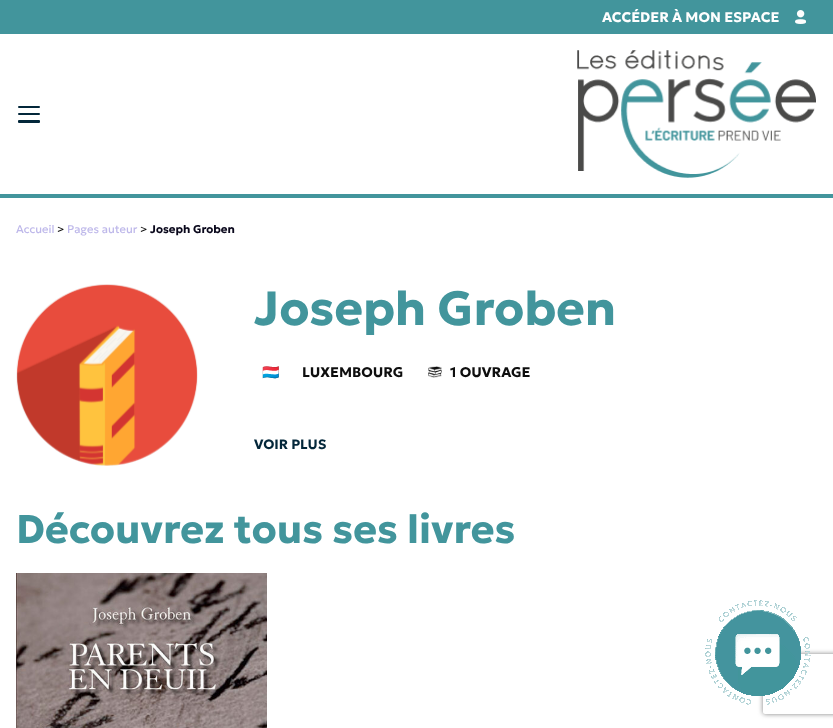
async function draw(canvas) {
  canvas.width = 833;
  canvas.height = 728;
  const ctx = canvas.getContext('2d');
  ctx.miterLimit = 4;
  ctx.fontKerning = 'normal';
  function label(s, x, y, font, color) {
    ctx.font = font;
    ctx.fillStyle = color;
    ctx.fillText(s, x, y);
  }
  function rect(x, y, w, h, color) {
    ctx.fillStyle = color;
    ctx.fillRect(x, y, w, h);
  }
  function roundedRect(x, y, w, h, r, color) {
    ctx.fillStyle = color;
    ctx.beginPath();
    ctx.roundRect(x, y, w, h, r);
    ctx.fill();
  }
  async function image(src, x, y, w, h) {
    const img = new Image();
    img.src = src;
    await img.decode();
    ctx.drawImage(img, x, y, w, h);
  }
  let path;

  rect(0, 0, 833, 728, '#fff');
  rect(0, 194, 833, 4, '#42959c');
  rect(0, 0, 833, 34, '#42959c');
  label('ACCÉDER À MON ESPACE', 602, 22, 'bold 14px Geologica', '#fefefe');
  await image('assets/img1.png', 795, 10, 11, 14);
  roundedRect(18, 106, 22, 2, 1, '#03273a');
  roundedRect(18, 113, 22, 2, 1, '#03273a');
  roundedRect(18, 120, 22, 3, 1, '#03273a');
  await image('assets/img2.png', 577, 50, 239, 128);
  label('Accueil', 16, 233, '11.25px Geologica', '#beb8ea');
  label('>', 57, 233, '11.25px Geologica', '#0e0e0e');
  label('Pages auteur', 67, 233, '11.25px Geologica', '#beb8ea');
  label('>', 140, 233, '11.25px Geologica', '#0e0e0e');
  label('Joseph Groben', 150, 233, 'bold 11.25px Geologica', '#0a081c');
  ctx.fillStyle = '#e5edee';
  ctx.beginPath();
  ctx.arc(107, 375, 91, 0, 2 * Math.PI);
  ctx.fill();
  await image('assets/img3.png', 16, 284, 182, 182);
  label('Joseph Groben', 254, 325, 'bold 48px Geologica', '#42959c');
  label('🇱🇺', 262, 377, 'bold 14px Noto Color Emoji', '#0e0e0e');
  label('LUXEMBOURG', 302, 377, 'bold 14px Geologica', '#0e0e0e');
  await image('assets/img4.png', 428, 366, 14, 12);
  label('1 OUVRAGE', 450, 377, 'bold 14px Geologica', '#0e0e0e');
  label('VOIR PLUS', 254, 449, 'bold 13.5px Geologica', '#03273a');
  label('Découvrez tous ses livres', 16, 543, 'bold 40px Geologica', '#42959c');
  await image('assets/img5.png', 16, 573, 251, 155);
  ctx.save();
  path = new Path2D('M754 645H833V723H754ZM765 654H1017C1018 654 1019 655 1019 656V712C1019 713 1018 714 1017 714H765C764 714 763 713 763 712V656C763 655 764 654 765 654Z');
  ctx.clip(path, 'evenodd');
  ctx.fillStyle = '#808080';
  ctx.filter = 'blur(2.5px)';
  ctx.beginPath();
  ctx.roundRect(763, 654, 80, 60, 2);
  ctx.fill();
  ctx.filter = 'none';
  ctx.restore();
  await image('assets/img6.png', 705, 600, 106, 105);
}

draw(document.querySelector('canvas'));
